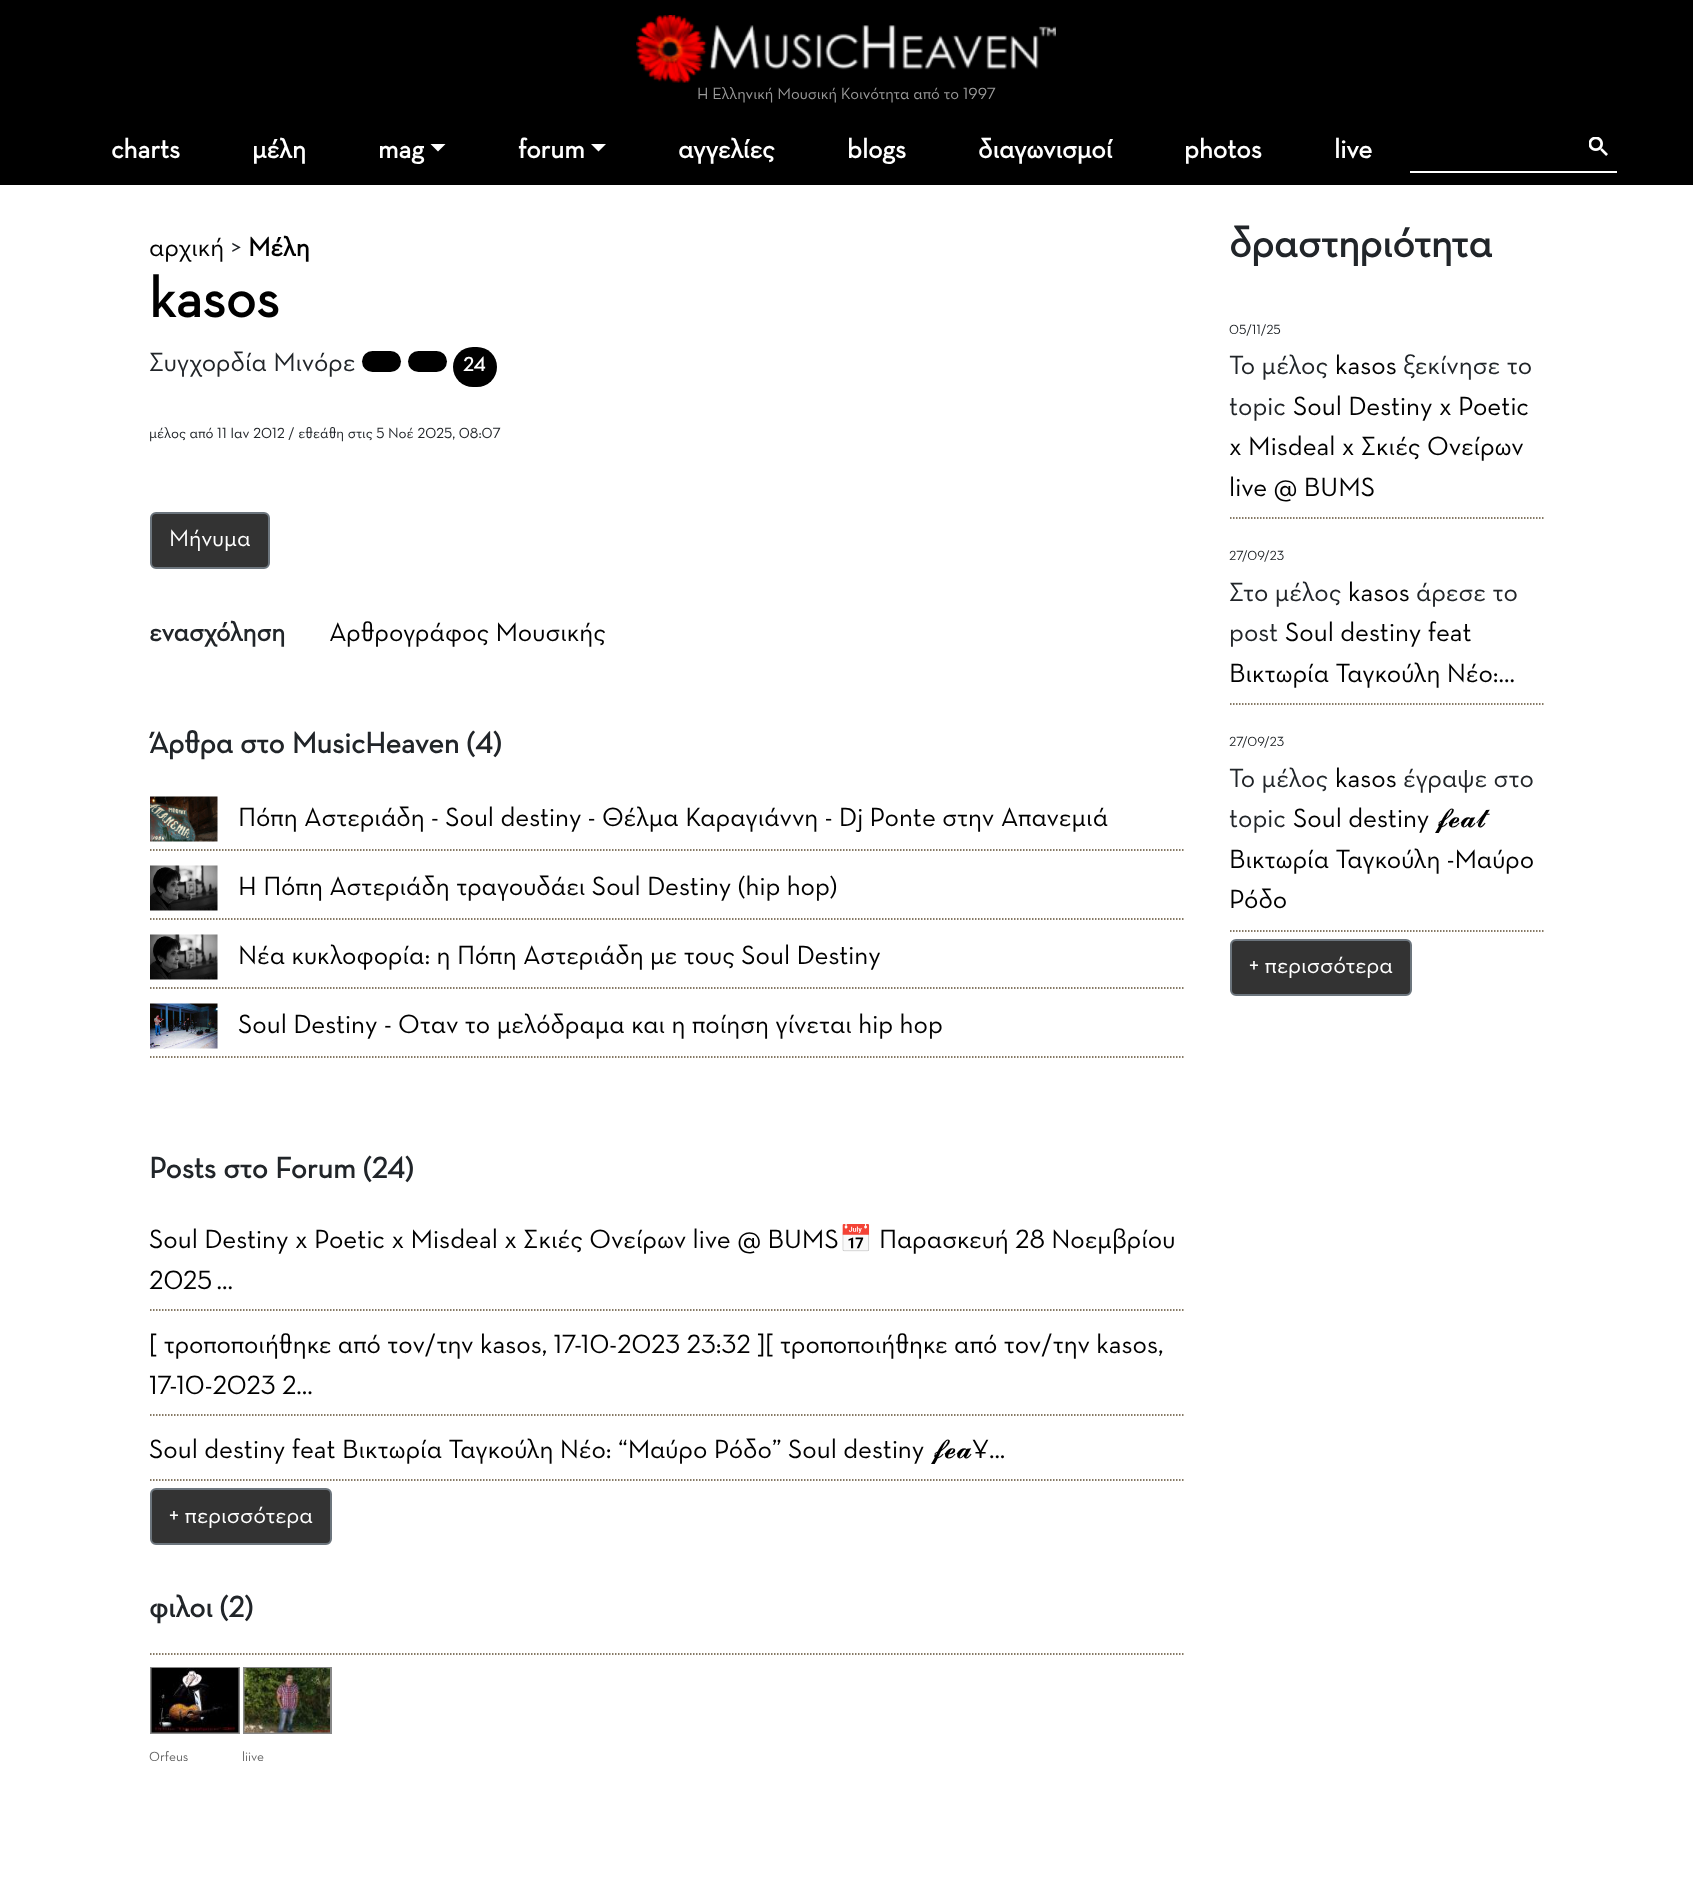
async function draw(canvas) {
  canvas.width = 1693;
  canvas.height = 1892;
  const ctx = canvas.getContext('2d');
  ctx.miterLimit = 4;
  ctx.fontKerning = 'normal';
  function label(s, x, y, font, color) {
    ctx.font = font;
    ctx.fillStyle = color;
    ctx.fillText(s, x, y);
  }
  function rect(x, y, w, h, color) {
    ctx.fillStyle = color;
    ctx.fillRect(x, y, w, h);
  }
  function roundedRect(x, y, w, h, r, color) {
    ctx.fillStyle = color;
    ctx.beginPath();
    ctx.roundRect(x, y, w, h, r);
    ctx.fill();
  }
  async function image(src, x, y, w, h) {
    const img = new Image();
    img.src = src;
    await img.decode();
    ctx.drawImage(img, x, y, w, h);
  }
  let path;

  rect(0, 0, 1693, 1892, '#fff');
  rect(0, 0, 1693, 185, '#000');
  await image('assets/img1.png', 636, 15, 420, 68);
  label('Η Ελληνική Μουσική Κοινότητα από το 1997', 697, 99, '16.5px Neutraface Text', '#999');
  label('charts', 111, 158, 'bold 27px Neutraface Text', '#fff');
  label('μέλη', 252, 158, 'bold 27px Neutraface Text', '#fff');
  label('mag', 378, 158, 'bold 27px Neutraface Text', '#fff');
  path = new Path2D('M430.5 144H445.5L438 151.5Z');
  ctx.fill(path);
  label('forum', 518, 158, 'bold 27px Neutraface Text', '#fff');
  path = new Path2D('M591 144H606L598.5 151.5Z');
  ctx.fill(path);
  label('αγγελίες', 678, 158, 'bold 27px Neutraface Text', '#fff');
  label('blogs', 847, 158, 'bold 27px Neutraface Text', '#fff');
  label('διαγωνισμοί', 978, 158, 'bold 27px Neutraface Text', '#fff');
  label('photos', 1184, 158, 'bold 27px Neutraface Text', '#fff');
  label('live', 1334, 158, 'bold 27px Neutraface Text', '#fff');
  rect(1410, 171, 207, 2, '#fff');
  await image('assets/img2.png', 1589, 137, 19, 19);
  label('αρχική', 149, 256, '27px Neutraface Text', '#000');
  label('>', 231, 256, '27px Neutraface Text', '#212529');
  label('Μέλη', 248, 256, 'bold 27px Neutraface Text', '#000');
  label('kasos', 149, 317, 'bold 57px Neutraface Text', '#000');
  label('Συγχορδία Μινόρε', 149, 371, '27px Neutraface Text', '#212529');
  roundedRect(362, 351, 39, 21, 10.5, '#000');
  roundedRect(408, 351, 39, 21, 10.5, '#000');
  roundedRect(453, 347, 44, 40, 20, '#000');
  label('24', 463, 371, 'bold 20px Neutraface Text', '#fff');
  label('μέλος από 11 Ιαν 2012 / εθεάθη στις 5 Νοέ 2025, 08:07', 149, 438, '15px Neutraface Text', '#212529');
  ctx.fillStyle = '#333';
  ctx.beginPath();
  ctx.roundRect(151, 513, 118, 55, 5);
  ctx.fill();
  ctx.strokeStyle = '#6c757d';
  ctx.lineWidth = 2;
  ctx.stroke();
  label('Μήνυμα', 169, 546, '24px Neutraface Text', '#fff');
  label('ενασχόληση', 149, 641, 'bold 27px Neutraface Text', '#212529');
  label('Αρθρογράφος Μουσικής', 329, 641, '27px Neutraface Text', '#000');
  label('Άρθρα στο MusicHeaven (4)', 149, 753, 'bold 30px Neutraface Text', '#212529');
  path = new Path2D('M150 850H1185');
  ctx.strokeStyle = '#5f4e33';
  ctx.lineWidth = 1.5;
  ctx.setLineDash([1.5, 1.5]);
  ctx.stroke(path);
  await image('assets/img3.png', 150, 796, 68, 46);
  label('Πόπη Αστεριάδη - Soul destiny - Θέλμα Καραγιάννη - Dj Ponte στην Απανεμιά', 238, 826, '27px Neutraface Text', '#000');
  path = new Path2D('M150 919H1185');
  ctx.stroke(path);
  await image('assets/img4.png', 150, 865, 68, 46);
  label('Η Πόπη Αστεριάδη τραγουδάει Soul Destiny (hip hop)', 238, 895, '27px Neutraface Text', '#000');
  path = new Path2D('M150 988H1185');
  ctx.stroke(path);
  await image('assets/img4.png', 150, 934, 68, 46);
  label('Νέα κυκλοφορία: η Πόπη Αστεριάδη με τους Soul Destiny', 238, 964, '27px Neutraface Text', '#000');
  path = new Path2D('M150 1057H1185');
  ctx.stroke(path);
  await image('assets/img5.png', 150, 1003, 68, 46);
  label('Soul Destiny - Oταν το μελόδραμα και η ποίηση γίνεται hip hop', 238, 1033, '27px Neutraface Text', '#000');
  label('Posts στο Forum (24)', 149, 1178, 'bold 30px Neutraface Text', '#212529');
  path = new Path2D('M150 1310H1185');
  ctx.stroke(path);
  label('Soul Destiny x Poetic x Misdeal x Σκιές Ονείρων live @ BUMS', 149, 1248, '27px Neutraface Text', '#000');
  label('📅', 839, 1248, '27px Noto Color Emoji', '#000');
  label('Παρασκευή 28 Νοεμβρίου', 879, 1248, '27px Neutraface Text', '#000');
  ctx.wordSpacing = '-2px';
  label('2025 ...', 149, 1289, '27px Neutraface Text', '#000');
  path = new Path2D('M150 1415H1185');
  ctx.stroke(path);
  ctx.wordSpacing = '0px';
  label('[ τροποποιήθηκε από τον/την kasos, 17-10-2023 23:32 ][ τροποποιήθηκε από τον/την kasos,', 149, 1353, '27px Neutraface Text', '#000');
  label('17-10-2023 2...', 149, 1394, '27px Neutraface Text', '#000');
  path = new Path2D('M150 1480H1185');
  ctx.stroke(path);
  label('Soul destiny feat Βικτωρία Ταγκούλη Νέο: “Μαύρο Ρόδο” Soul destiny', 149, 1458, '27px Neutraface Text', '#000');
  label('𝓯𝓮𝓪', 931, 1458, '27px FreeSerif', '#000');
  label('Ұ...', 972, 1458, '27px Neutraface Text', '#000');
  ctx.fillStyle = '#333';
  ctx.beginPath();
  ctx.roundRect(151, 1489, 180, 55, 5);
  ctx.fill();
  ctx.strokeStyle = '#6c757d';
  ctx.lineWidth = 2;
  ctx.setLineDash([]);
  ctx.stroke();
  label('+ περισσότερα', 169, 1523, '24px Neutraface Text', '#fff');
  label('φιλοι (2)', 149, 1617, 'bold 30px Neutraface Text', '#212529');
  path = new Path2D('M150 1654H1185');
  ctx.strokeStyle = '#5f4e33';
  ctx.lineWidth = 1.5;
  ctx.setLineDash([1.5, 1.5]);
  ctx.stroke(path);
  ctx.strokeStyle = '#888';
  ctx.lineWidth = 2;
  ctx.setLineDash([]);
  ctx.strokeRect(151, 1668, 88, 65);
  await image('assets/img6.png', 151, 1668, 88, 65);
  label('Orfeus', 149, 1761, '13.5px Neutraface Text', '#666');
  ctx.strokeRect(244, 1668, 87, 65);
  await image('assets/img7.png', 244, 1668, 86, 65);
  label('liive', 242, 1761, '13.5px Neutraface Text', '#666');
  label('δραστηριότητα', 1229, 257, 'bold 42px Neutraface Text', '#212529');
  path = new Path2D('M1230 518H1545');
  ctx.strokeStyle = '#5f4e33';
  ctx.lineWidth = 1.5;
  ctx.setLineDash([1.5, 1.5]);
  ctx.stroke(path);
  label('05/11/25', 1229, 334, '13.5px Neutraface Text', '#212529');
  label('Το μέλος', 1229, 374, '27px Neutraface Text', '#212529');
  label('kasos', 1335, 374, '27px Neutraface Text', '#000');
  label('ξεκίνησε το', 1403, 374, '27px Neutraface Text', '#212529');
  label('topic', 1229, 415, '27px Neutraface Text', '#212529');
  label('Soul Destiny x Poetic', 1293, 415, '27px Neutraface Text', '#000');
  label('x Misdeal x Σκιές Ονείρων', 1229, 455, '27px Neutraface Text', '#000');
  label('live @ BUMS', 1229, 496, '27px Neutraface Text', '#000');
  path = new Path2D('M1230 704H1545');
  ctx.stroke(path);
  label('27/09/23', 1229, 560, '13.5px Neutraface Text', '#212529');
  label('Στο μέλος', 1229, 601, '27px Neutraface Text', '#212529');
  label('kasos', 1348, 601, '27px Neutraface Text', '#000');
  label('άρεσε το', 1416, 601, '27px Neutraface Text', '#212529');
  label('post', 1229, 641, '27px Neutraface Text', '#212529');
  label('Soul destiny feat', 1285, 641, '27px Neutraface Text', '#000');
  label('Βικτωρία Ταγκούλη Νέο:...', 1229, 682, '27px Neutraface Text', '#000');
  path = new Path2D('M1230 931H1545');
  ctx.stroke(path);
  label('27/09/23', 1229, 746, '13.5px Neutraface Text', '#212529');
  label('Το μέλος', 1229, 787, '27px Neutraface Text', '#212529');
  label('kasos', 1335, 787, '27px Neutraface Text', '#000');
  label('έγραψε στο', 1403, 787, '27px Neutraface Text', '#212529');
  label('topic', 1229, 827, '27px Neutraface Text', '#212529');
  label('Soul destiny', 1293, 827, '27px Neutraface Text', '#000');
  label('𝓯𝓮𝓪𝓽', 1435, 827, '27px FreeSerif', '#000');
  label('Βικτωρία Ταγκούλη -Μαύρο', 1229, 868, '27px Neutraface Text', '#000');
  label('Ρόδο', 1229, 908, '27px Neutraface Text', '#000');
  ctx.fillStyle = '#333';
  ctx.beginPath();
  ctx.roundRect(1231, 940, 180, 55, 5);
  ctx.fill();
  ctx.strokeStyle = '#6c757d';
  ctx.lineWidth = 2;
  ctx.setLineDash([]);
  ctx.stroke();
  label('+ περισσότερα', 1249, 973, '24px Neutraface Text', '#fff');
}

draw(document.querySelector('canvas'));
